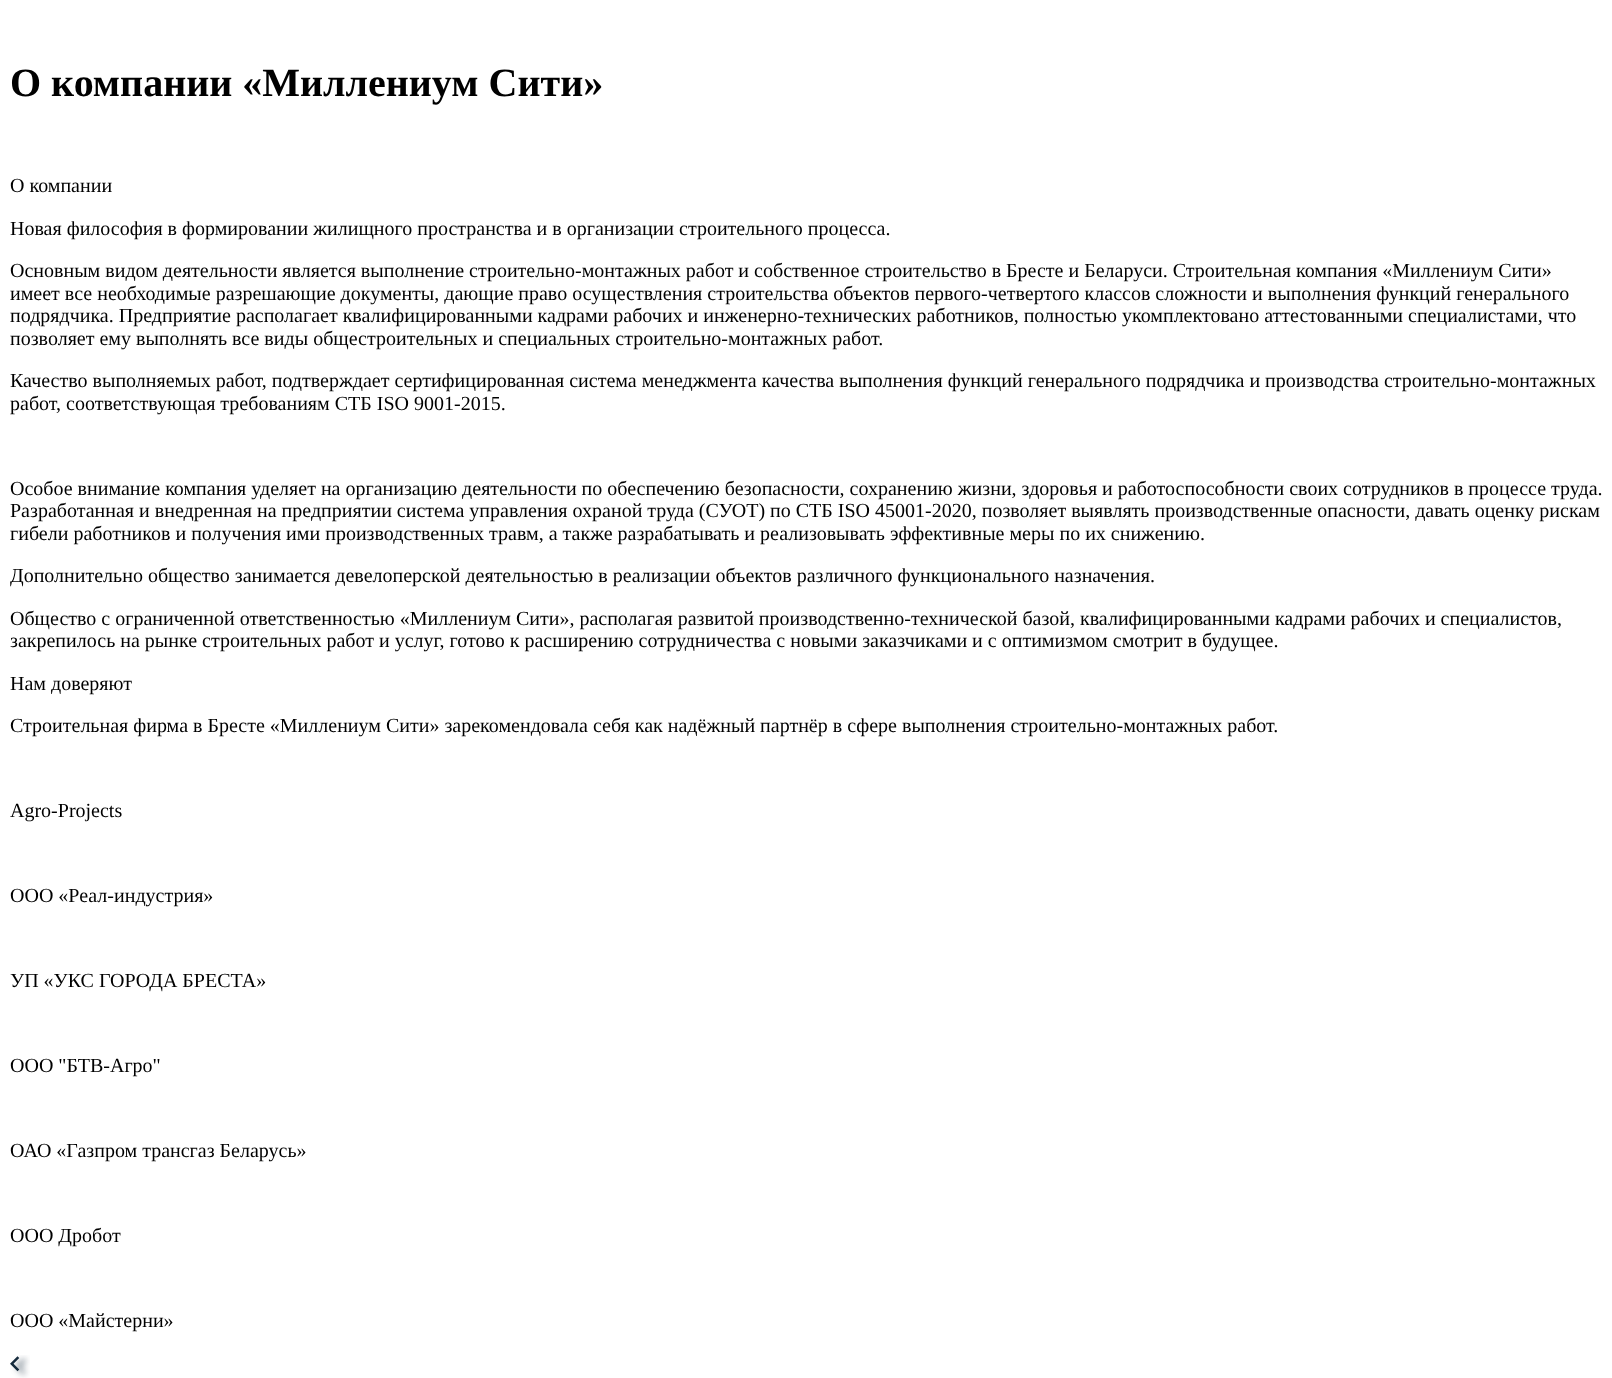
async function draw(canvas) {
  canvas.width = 1612;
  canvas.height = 1378;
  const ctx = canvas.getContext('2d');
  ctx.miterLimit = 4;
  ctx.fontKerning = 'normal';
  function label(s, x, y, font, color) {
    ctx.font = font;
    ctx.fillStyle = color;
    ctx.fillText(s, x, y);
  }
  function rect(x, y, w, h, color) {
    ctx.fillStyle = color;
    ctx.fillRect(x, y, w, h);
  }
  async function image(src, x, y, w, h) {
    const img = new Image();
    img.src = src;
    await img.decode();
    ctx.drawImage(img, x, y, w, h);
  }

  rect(0, 0, 1612, 1378, '#fff');
  label('О компании «Миллениум Сити»', 10, 96, 'bold 40px Liberation Serif', '#000');
  label('О компании', 10, 192, '20px Liberation Serif', '#000');
  label('Новая философия в формировании жилищного пространства и в организации строительного процесса.', 10, 235, '20px Liberation Serif', '#000');
  label('Основным видом деятельности является выполнение строительно-монтажных работ и собственное строительство в Бресте и Беларуси. Строительная компания «Миллениум Сити»', 10, 277, '20px Liberation Serif', '#000');
  label('имеет все необходимые разрешающие документы, дающие право осуществления строительства объектов первого-четвертого классов сложности и выполнения функций генерального', 10, 300, '20px Liberation Serif', '#000');
  label('подрядчика. Предприятие располагает квалифицированными кадрами рабочих и инженерно-технических работников, полностью укомплектовано аттестованными специалистами, что', 10, 322, '20px Liberation Serif', '#000');
  label('позволяет ему выполнять все виды общестроительных и специальных строительно-монтажных работ.', 10, 345, '20px Liberation Serif', '#000');
  label('Качество выполняемых работ, подтверждает сертифицированная система менеджмента качества выполнения функций генерального подрядчика и производства строительно-монтажных', 10, 387, '20px Liberation Serif', '#000');
  label('работ, соответствующая требованиям СТБ ISO 9001-2015.', 10, 410, '20px Liberation Serif', '#000');
  label('Особое внимание компания уделяет на организацию деятельности по обеспечению безопасности, сохранению жизни, здоровья и работоспособности своих сотрудников в процессе труда.', 10, 495, '20px Liberation Serif', '#000');
  label('Разработанная и внедренная на предприятии система управления охраной труда (СУОТ) по СТБ ISO 45001-2020, позволяет выявлять производственные опасности, давать оценку рискам', 10, 517, '20px Liberation Serif', '#000');
  label('гибели работников и получения ими производственных травм, а также разрабатывать и реализовывать эффективные меры по их снижению.', 10, 540, '20px Liberation Serif', '#000');
  label('Дополнительно общество занимается девелоперской деятельностью в реализации объектов различного функционального назначения.', 10, 582, '20px Liberation Serif', '#000');
  label('Общество с ограниченной ответственностью «Миллениум Сити», располагая развитой производственно-технической базой, квалифицированными кадрами рабочих и специалистов,', 10, 625, '20px Liberation Serif', '#000');
  label('закрепилось на рынке строительных работ и услуг, готово к расширению сотрудничества с новыми заказчиками и с оптимизмом смотрит в будущее.', 10, 647, '20px Liberation Serif', '#000');
  label('Нам доверяют', 10, 690, '20px Liberation Serif', '#000');
  label('Строительная фирма в Бресте «Миллениум Сити» зарекомендовала себя как надёжный партнёр в сфере выполнения строительно-монтажных работ.', 10, 732, '20px Liberation Serif', '#000');
  label('Agro-Projects', 10, 817, '20px Liberation Serif', '#000');
  label('ООО «Реал-индустрия»', 10, 902, '20px Liberation Serif', '#000');
  label('УП «УКС ГОРОДА БРЕСТА»', 10, 987, '20px Liberation Serif', '#000');
  label('ООО "БТВ-Агро"', 10, 1072, '20px Liberation Serif', '#000');
  label('ОАО «Газпром трансгаз Беларусь»', 10, 1157, '20px Liberation Serif', '#000');
  label('ООО Дробот', 10, 1242, '20px Liberation Serif', '#000');
  label('ООО «Майстерни»', 10, 1327, '20px Liberation Serif', '#000');
  await image('assets/img1.png', 10, 1355, 20, 23);
}

draw(document.querySelector('canvas'));
